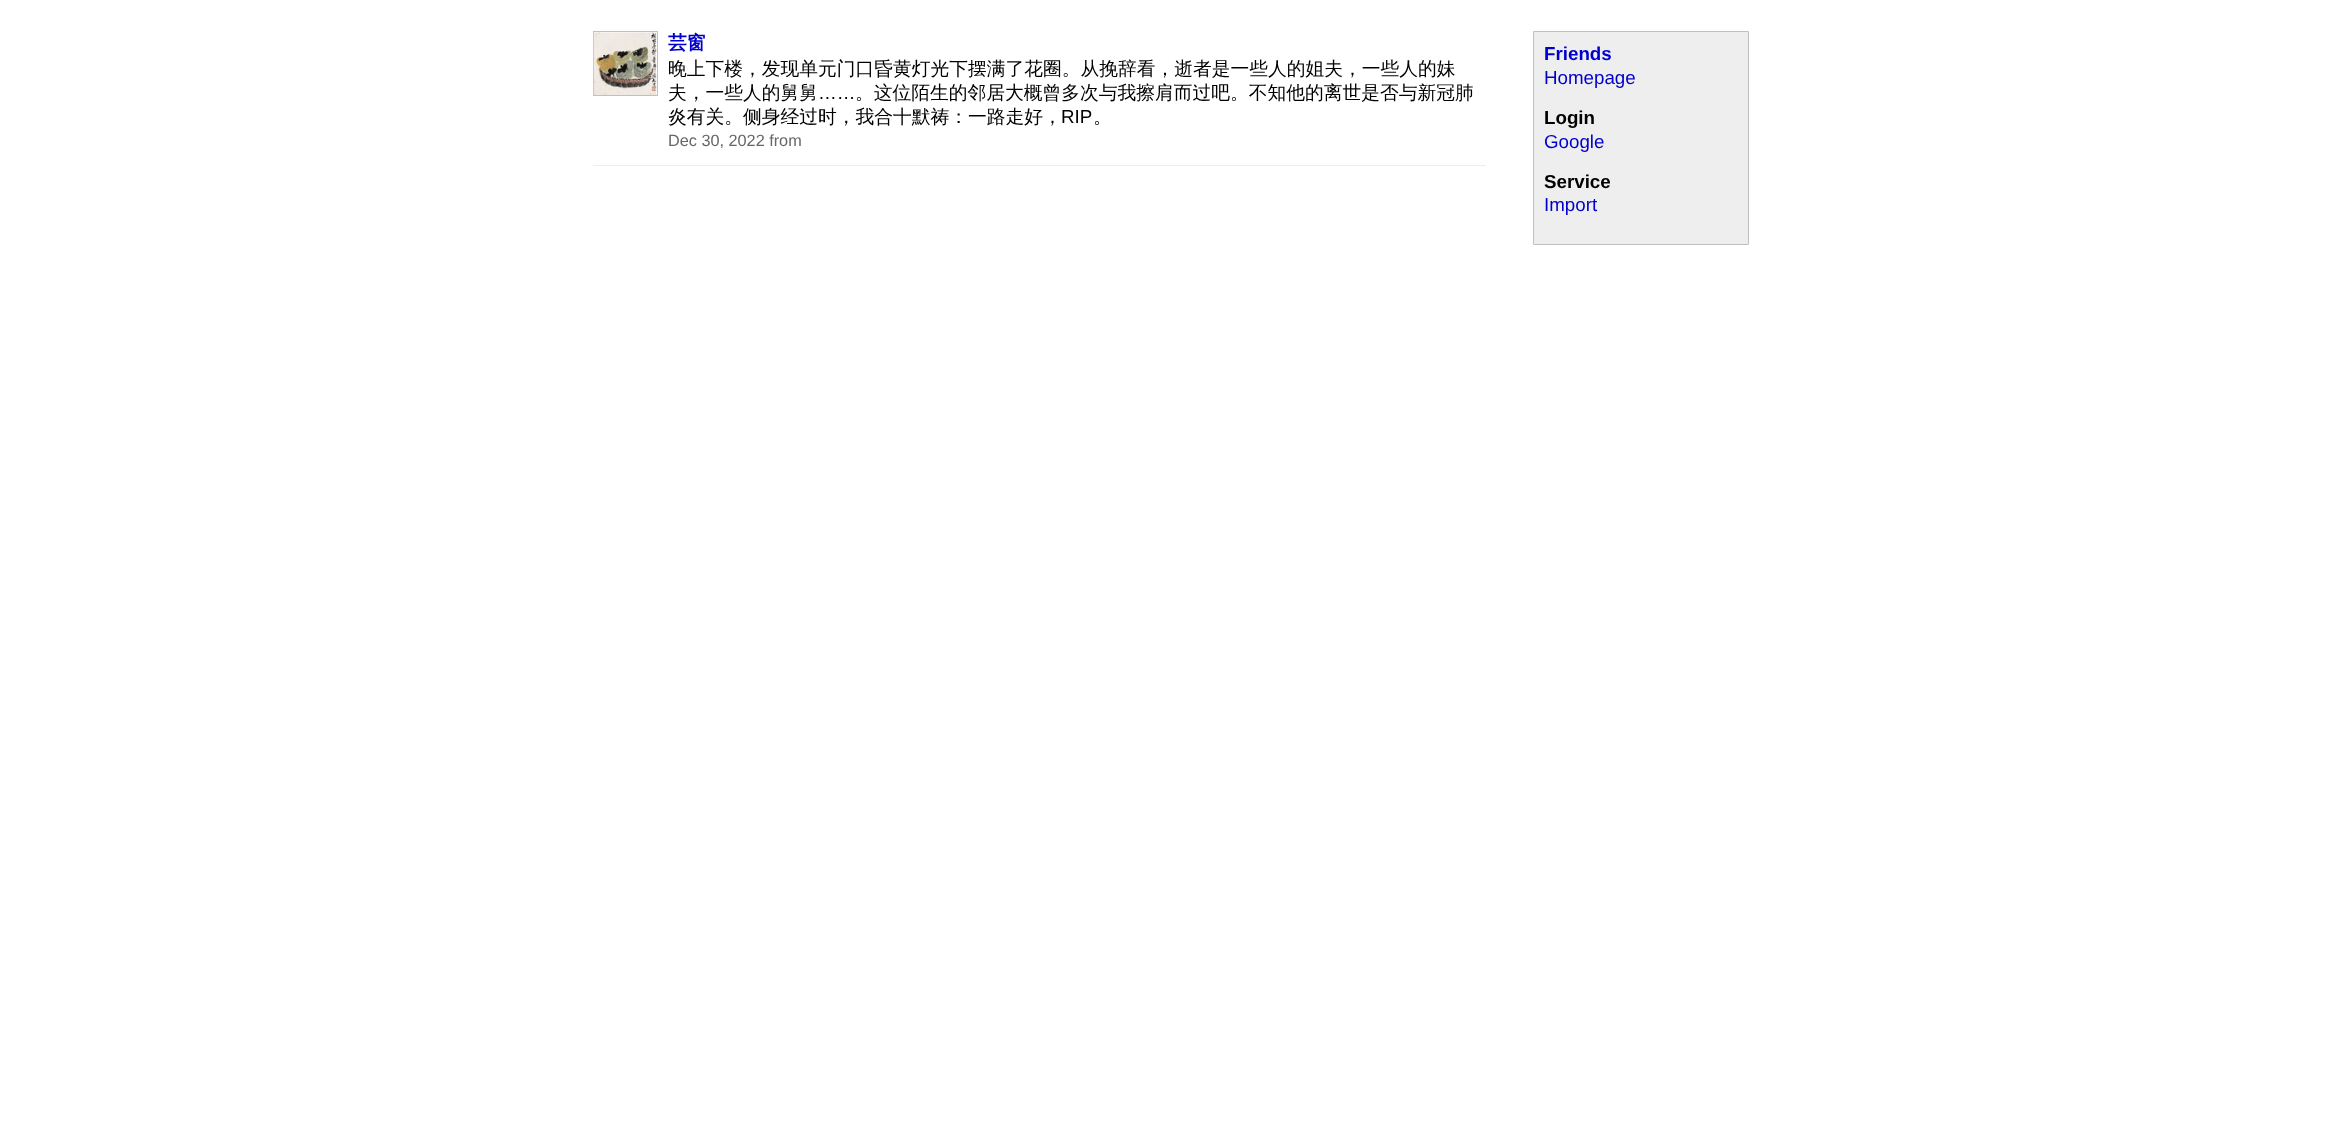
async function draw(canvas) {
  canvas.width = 2341;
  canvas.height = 1144;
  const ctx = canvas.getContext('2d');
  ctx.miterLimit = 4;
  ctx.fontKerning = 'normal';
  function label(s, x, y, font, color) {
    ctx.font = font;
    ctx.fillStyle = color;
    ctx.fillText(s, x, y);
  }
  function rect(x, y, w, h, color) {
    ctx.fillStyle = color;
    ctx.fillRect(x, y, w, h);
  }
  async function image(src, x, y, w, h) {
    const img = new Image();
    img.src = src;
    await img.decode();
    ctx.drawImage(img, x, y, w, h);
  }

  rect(0, 0, 2341, 1144, '#fff');
  rect(593, 165, 893, 1, '#eee');
  ctx.strokeStyle = '#c0c0c0';
  ctx.strokeRect(593.5, 31.5, 64, 64);
  await image('assets/img1.png', 593, 32, 64, 63);
  label('芸窗', 668, 49, 'bold 18.75px WenQuanYi Zen Hei', '#00c');
  label('晚上下楼，发现单元门口昏黄灯光下摆满了花圈。从挽辞看，逝者是一些人的姐夫，一些人的妹', 668, 75, '500 18.75px WenQuanYi Zen Hei', '#000');
  label('夫，一些人的舅舅', 668, 99, '500 18.75px WenQuanYi Zen Hei', '#000');
  label('……', 818, 99, '18.75px Liberation Sans', '#000');
  label('。这位陌生的邻居大概曾多次与我擦肩而过吧。不知他的离世是否与新冠肺', 855, 99, '500 18.75px WenQuanYi Zen Hei', '#000');
  label('炎有关。侧身经过时，我合十默祷：一路走好，', 668, 123, '500 18.75px WenQuanYi Zen Hei', '#000');
  label('RIP', 1061, 123, '18.75px Liberation Sans', '#000');
  label('。', 1093, 123, '500 18.75px WenQuanYi Zen Hei', '#000');
  label('Dec 30, 2022 from', 668, 146, '16.25px Liberation Sans', '#666');
  ctx.fillStyle = '#eee';
  ctx.beginPath();
  ctx.rect(1533.5, 31.5, 215, 213);
  ctx.fill();
  ctx.stroke();
  label('Friends', 1544, 60, 'bold 18.75px Liberation Sans', '#00c');
  label('Homepage', 1544, 84, '18.75px Liberation Sans', '#00c');
  label('Login', 1544, 124, 'bold 18.75px Liberation Sans', '#000');
  label('Google', 1544, 148, '18.75px Liberation Sans', '#00c');
  label('Service', 1544, 188, 'bold 18.75px Liberation Sans', '#000');
  label('Import', 1544, 211, '18.75px Liberation Sans', '#00c');
}

draw(document.querySelector('canvas'));
